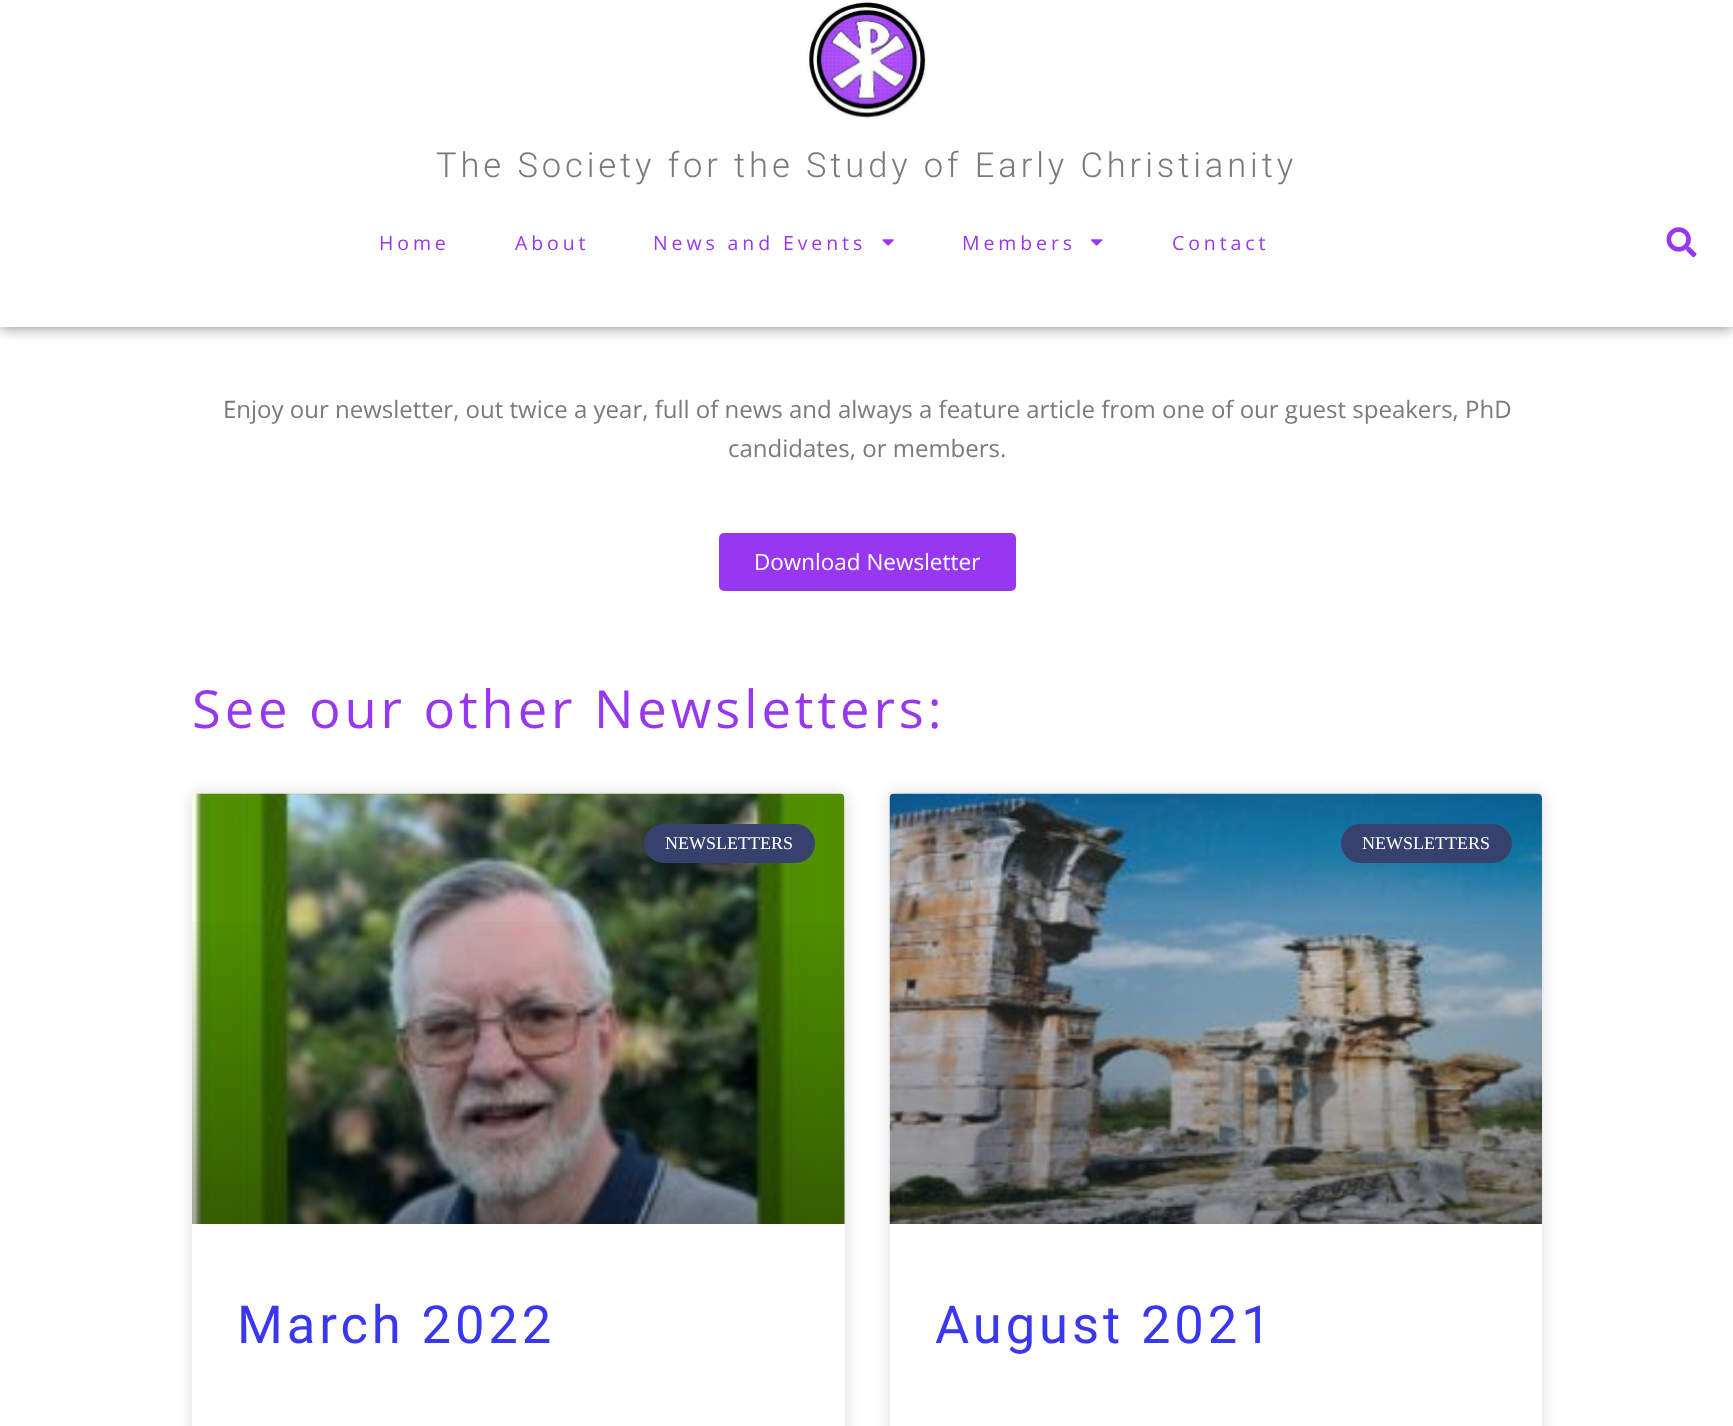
async function draw(canvas) {
  canvas.width = 1733;
  canvas.height = 1426;
  const ctx = canvas.getContext('2d');
  ctx.miterLimit = 4;
  ctx.fontKerning = 'normal';
  function label(s, x, y, font, color) {
    ctx.font = font;
    ctx.fillStyle = color;
    ctx.fillText(s, x, y);
  }
  function rect(x, y, w, h, color) {
    ctx.fillStyle = color;
    ctx.fillRect(x, y, w, h);
  }
  function roundedRect(x, y, w, h, r, color) {
    ctx.fillStyle = color;
    ctx.beginPath();
    ctx.roundRect(x, y, w, h, r);
    ctx.fill();
  }
  async function image(src, x, y, w, h) {
    const img = new Image();
    img.src = src;
    await img.decode();
    ctx.drawImage(img, x, y, w, h);
  }
  let gradient, path;

  rect(0, 0, 1733, 1426, '#fff');
  ctx.fillStyle = '#00000080';
  ctx.filter = 'blur(7.5px)';
  ctx.beginPath();
  ctx.rect(0, 0, 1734, 327);
  ctx.fill();
  ctx.filter = 'none';
  rect(0, 0, 1733, 327, '#fff');
  await image('assets/img1.png', 807, 0, 119, 119);
  ctx.letterSpacing = '3.9px';
  label('The Society for the Study of Early Christianity', 436, 177, '300 34.5px Roboto', '#7a7a7a');
  label('Home', 379, 250, '19.5px Open Sans', '#9837f0');
  label('About', 515, 250, '19.5px Open Sans', '#9837f0');
  label('News and Events', 653, 250, '19.5px Open Sans', '#9837f0');
  await image('assets/img2.png', 882, 239, 12, 7);
  label('Members', 962, 250, '19.5px Open Sans', '#9837f0');
  await image('assets/img3.png', 1091, 239, 12, 7);
  label('Contact', 1172, 250, '19.5px Open Sans', '#9837f0');
  await image('assets/img4.png', 1666, 227, 31, 31);
  ctx.letterSpacing = '0px';
  label('Enjoy our newsletter, out twice a year, full of news and always a feature article from one of our guest speakers, PhD', 223, 418, '24px Open Sans', '#7a7a7a');
  label('candidates, or members.', 728, 457, '24px Open Sans', '#7a7a7a');
  roundedRect(719, 533, 297, 58, 5, '#9837f0');
  label('Download Newsletter', 754, 570, '22.5px Open Sans', '#fff');
  ctx.letterSpacing = '3.9px';
  label('See our other Newsletters:', 192, 728, '52.5px Open Sans', '#9837f0');
  ctx.fillStyle = '#00000026';
  ctx.filter = 'blur(7.5px)';
  ctx.beginPath();
  ctx.roundRect(192, 794, 653, 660, 5);
  ctx.fill();
  ctx.filter = 'none';
  roundedRect(192, 794, 653, 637, 5, '#fff');
  await image('assets/img5.png', 192, 793, 653, 431);
  gradient = ctx.createLinearGradient(518, 1224, 518, 794);
  gradient.addColorStop(0, '#00000059');
  gradient.addColorStop(0.75, '#00000000');
  ctx.fillStyle = gradient;
  ctx.fillRect(192, 921, 653, 303);
  roundedRect(644, 824, 171, 39, 19.5, '#37416e');
  ctx.letterSpacing = '0px';
  label('NEWSLETTERS', 665, 849, '18px Liberation Serif', '#fff');
  ctx.letterSpacing = '3.9px';
  label('March 2022', 237, 1343, '52.5px Roboto', '#3a37f0');
  ctx.save();
  path = new Path2D('M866 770H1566V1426H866ZM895 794H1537C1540 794 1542 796 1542 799V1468C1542 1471 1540 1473 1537 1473H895C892 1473 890 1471 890 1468V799C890 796 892 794 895 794Z');
  ctx.clip(path, 'evenodd');
  ctx.fillStyle = '#00000026';
  ctx.filter = 'blur(7.5px)';
  ctx.beginPath();
  ctx.roundRect(890, 794, 652, 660, 5);
  ctx.fill();
  ctx.filter = 'none';
  ctx.restore();
  await image('assets/img6.png', 889, 793, 653, 431);
  gradient = ctx.createLinearGradient(1216, 1224, 1216, 794);
  gradient.addColorStop(0, '#00000059');
  gradient.addColorStop(0.75, '#00000000');
  ctx.fillStyle = gradient;
  ctx.fillRect(890, 921, 652, 303);
  roundedRect(1341, 824, 171, 39, 19.5, '#37416e');
  ctx.letterSpacing = '0px';
  label('NEWSLETTERS', 1362, 849, '18px Liberation Serif', '#fff');
  ctx.letterSpacing = '3.9px';
  label('August 2021', 935, 1343, '52.5px Roboto', '#3a37f0');
}

draw(document.querySelector('canvas'));
